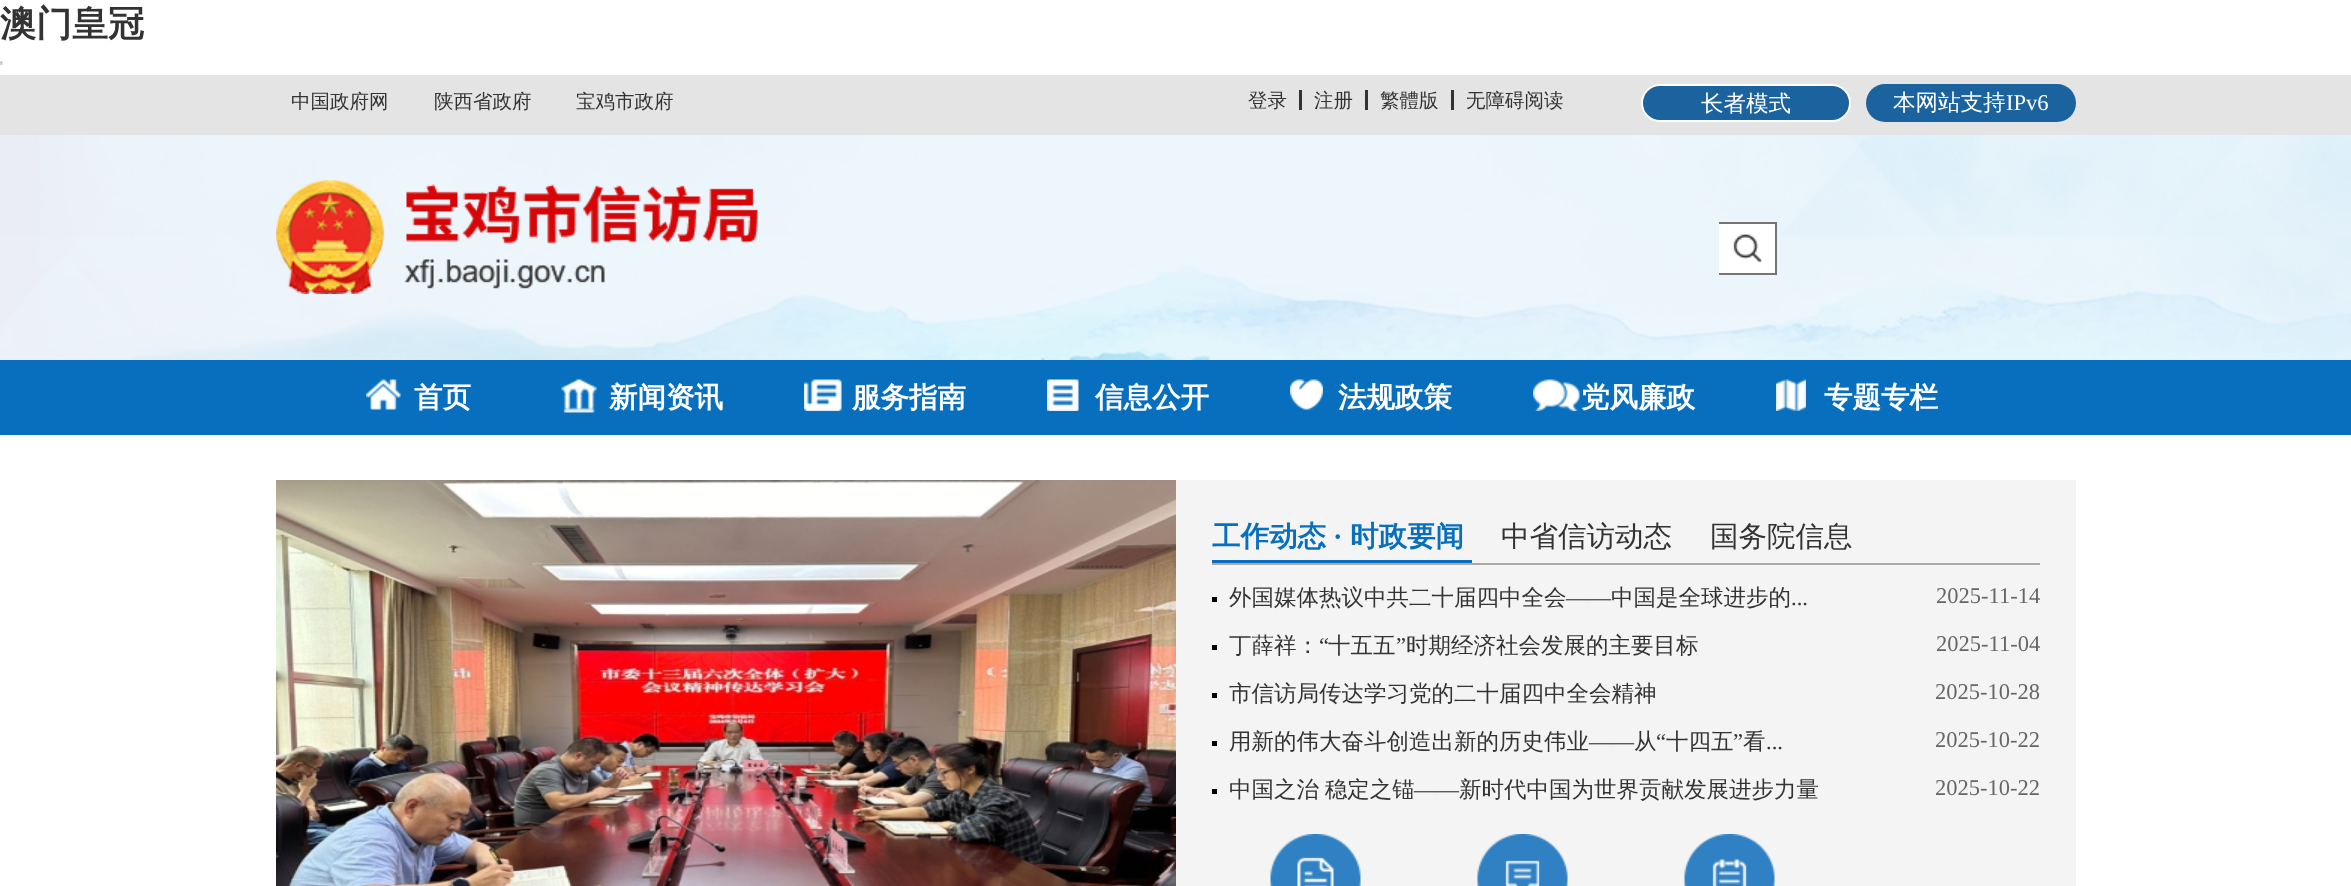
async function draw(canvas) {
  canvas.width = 2351;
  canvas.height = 886;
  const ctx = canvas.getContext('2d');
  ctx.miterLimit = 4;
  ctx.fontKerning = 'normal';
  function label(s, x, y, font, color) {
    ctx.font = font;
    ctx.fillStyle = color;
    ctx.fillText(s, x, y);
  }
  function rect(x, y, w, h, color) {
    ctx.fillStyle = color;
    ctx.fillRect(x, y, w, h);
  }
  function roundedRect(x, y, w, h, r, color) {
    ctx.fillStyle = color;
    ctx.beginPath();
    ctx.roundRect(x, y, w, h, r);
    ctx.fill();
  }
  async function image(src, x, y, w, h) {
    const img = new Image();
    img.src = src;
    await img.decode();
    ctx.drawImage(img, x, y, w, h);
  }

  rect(0, 0, 2351, 886, '#fff');
  label('澳门皇冠', 0, 36, 'bold 36px WenQuanYi Zen Hei', '#333');
  await image('assets/img1.png', 0, 61, 3, 4);
  rect(0, 75, 2351, 60, '#e4e4e4');
  label('中国政府网', 291, 108, '500 19.5px WenQuanYi Zen Hei', '#333');
  label('陕西省政府', 434, 108, '500 19.5px WenQuanYi Zen Hei', '#333');
  label('宝鸡市政府', 576, 108, '500 19.5px WenQuanYi Zen Hei', '#333');
  rect(1299, 90, 3, 20, '#333');
  label('登录', 1248, 107, '500 19.5px WenQuanYi Zen Hei', '#333');
  rect(1365, 90, 3, 20, '#333');
  label('注册', 1314, 107, '500 19.5px WenQuanYi Zen Hei', '#333');
  rect(1451, 90, 3, 20, '#333');
  label('繁體版', 1380, 107, '500 19.5px WenQuanYi Zen Hei', '#333');
  label('无障碍阅读', 1466, 107, '500 19.5px WenQuanYi Zen Hei', '#333');
  ctx.fillStyle = '#1b639e';
  ctx.beginPath();
  ctx.roundRect(1642, 85, 208, 36, 18);
  ctx.fill();
  ctx.strokeStyle = '#fff';
  ctx.lineWidth = 2;
  ctx.stroke();
  label('长者模式', 1701, 111, '500 22.5px WenQuanYi Zen Hei', '#fff');
  roundedRect(1866, 84, 210, 38, 19, '#1b639e');
  label('本网站支持', 1893, 110, '500 22.5px WenQuanYi Zen Hei', '#fff');
  label('IPv6', 2006, 110, '22.5px Liberation Serif', '#fff');
  await image('assets/img2.png', 0, 135, 2351, 225);
  await image('assets/img3.png', 276, 180, 482, 114);
  await image('assets/img4.png', 1719, 224, 56, 49);
  rect(1719, 222, 57, 2, '#757575');
  rect(1775, 222, 2, 53, '#757575');
  rect(1719, 273, 57, 2, '#757575');
  rect(0, 360, 2351, 75, '#076fbe');
  await image('assets/img5.png', 366, 379, 35, 31);
  label('首页', 414, 407, 'bold 28.5px WenQuanYi Zen Hei', '#fff');
  await image('assets/img6.png', 561, 379, 36, 34);
  label('新闻资讯', 609, 407, 'bold 28.5px WenQuanYi Zen Hei', '#fff');
  await image('assets/img7.png', 804, 379, 38, 32);
  label('服务指南', 852, 407, 'bold 28.5px WenQuanYi Zen Hei', '#fff');
  await image('assets/img8.png', 1047, 379, 32, 32);
  label('信息公开', 1095, 407, 'bold 28.5px WenQuanYi Zen Hei', '#fff');
  await image('assets/img9.png', 1290, 379, 33, 31);
  label('法规政策', 1338, 407, 'bold 28.5px WenQuanYi Zen Hei', '#fff');
  await image('assets/img10.png', 1533, 379, 47, 32);
  label('党风廉政', 1581, 407, 'bold 28.5px WenQuanYi Zen Hei', '#fff');
  await image('assets/img11.png', 1776, 379, 30, 32);
  label('专题专栏', 1824, 407, 'bold 28.5px WenQuanYi Zen Hei', '#fff');
  await image('assets/img12.png', 276, 480, 900, 406);
  rect(1176, 480, 900, 406, '#f4f4f4');
  rect(1212, 563, 828, 2, '#aca9a9');
  rect(1212, 560, 260, 3, '#076fbe');
  label('工作动态', 1212, 546, 'bold 28.5px WenQuanYi Zen Hei', '#076fbe');
  label('·', 1333, 546, 'bold 28.5px Liberation Serif', '#076fbe');
  label('时政要闻', 1350, 546, 'bold 28.5px WenQuanYi Zen Hei', '#076fbe');
  label('中省信访动态', 1501, 546, '500 28.5px WenQuanYi Zen Hei', '#333');
  label('国务院信息', 1710, 546, '500 28.5px WenQuanYi Zen Hei', '#333');
  rect(1212, 597, 5, 5, '#000');
  label('外国媒体热议中共二十届四中全会', 1229, 605, '500 22.5px WenQuanYi Zen Hei', '#333');
  label('——', 1566, 605, '22.5px Liberation Serif', '#333');
  label('中国是全球进步的', 1611, 605, '500 22.5px WenQuanYi Zen Hei', '#333');
  label('...', 1791, 605, '22.5px Liberation Serif', '#333');
  label('2025-11-14', 1936, 603, '22.5px Liberation Serif', '#666');
  rect(1212, 645, 5, 5, '#000');
  label('丁薛祥：', 1229, 653, '500 22.5px WenQuanYi Zen Hei', '#333');
  label('“', 1319, 653, '22.5px Liberation Serif', '#333');
  label('十五五', 1328, 653, '500 22.5px WenQuanYi Zen Hei', '#333');
  label('”', 1396, 653, '22.5px Liberation Serif', '#333');
  label('时期经济社会发展的主要目标', 1406, 653, '500 22.5px WenQuanYi Zen Hei', '#333');
  label('2025-11-04', 1936, 651, '22.5px Liberation Serif', '#666');
  rect(1212, 693, 5, 5, '#000');
  label('市信访局传达学习党的二十届四中全会精神', 1229, 701, '500 22.5px WenQuanYi Zen Hei', '#333');
  label('2025-10-28', 1935, 699, '22.5px Liberation Serif', '#666');
  rect(1212, 741, 5, 5, '#000');
  label('用新的伟大奋斗创造出新的历史伟业', 1229, 749, '500 22.5px WenQuanYi Zen Hei', '#333');
  label('从', 1634, 749, '500 22.5px WenQuanYi Zen Hei', '#333');
  label('“', 1656, 749, '22.5px Liberation Serif', '#333');
  label('十四五', 1666, 749, '500 22.5px WenQuanYi Zen Hei', '#333');
  label('”', 1733, 749, '22.5px Liberation Serif', '#333');
  label('看', 1743, 749, '500 22.5px WenQuanYi Zen Hei', '#333');
  label('——', 1589, 749, '22.5px Liberation Serif', '#333');
  label('...', 1766, 749, '22.5px Liberation Serif', '#333');
  label('2025-10-22', 1935, 747, '22.5px Liberation Serif', '#666');
  rect(1212, 789, 5, 5, '#000');
  ctx.wordSpacing = '-1px';
  label('中国之治 稳定之锚', 1229, 797, '500 22.5px WenQuanYi Zen Hei', '#333');
  ctx.wordSpacing = '0px';
  label('——', 1414, 797, '22.5px Liberation Serif', '#333');
  label('新时代中国为世界贡献发展进步力量', 1459, 797, '500 22.5px WenQuanYi Zen Hei', '#333');
  label('2025-10-22', 1935, 795, '22.5px Liberation Serif', '#666');
  await image('assets/img13.png', 1270, 834, 91, 52);
  await image('assets/img14.png', 1477, 834, 91, 52);
  await image('assets/img15.png', 1684, 834, 91, 52);
}

draw(document.querySelector('canvas'));
